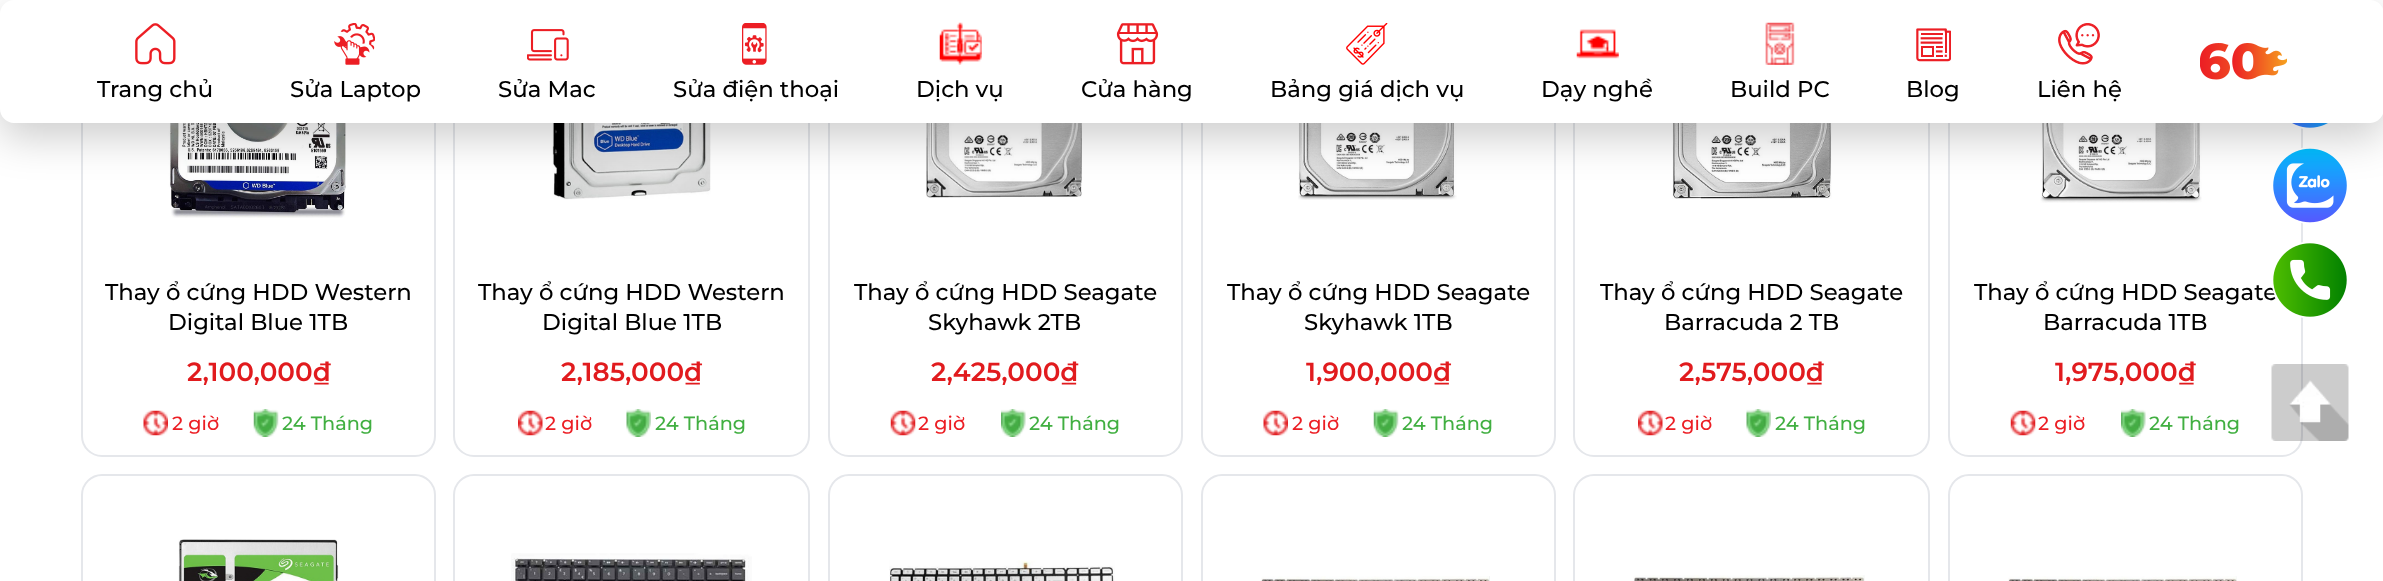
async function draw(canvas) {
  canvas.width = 2383;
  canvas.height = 581;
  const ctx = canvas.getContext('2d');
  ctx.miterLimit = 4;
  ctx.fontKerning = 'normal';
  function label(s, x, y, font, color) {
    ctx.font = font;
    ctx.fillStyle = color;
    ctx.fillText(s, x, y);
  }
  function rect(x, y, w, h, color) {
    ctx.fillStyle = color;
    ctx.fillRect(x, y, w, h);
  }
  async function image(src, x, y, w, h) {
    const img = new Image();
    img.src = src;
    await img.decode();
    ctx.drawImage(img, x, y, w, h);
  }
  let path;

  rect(0, 0, 2383, 581, '#fff');
  ctx.beginPath();
  ctx.roundRect(82, -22, 353, 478, 20);
  ctx.strokeStyle = '#e5e7eb';
  ctx.lineWidth = 2;
  ctx.stroke();
  ctx.beginPath();
  ctx.roundRect(454, -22, 355, 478, 20);
  ctx.stroke();
  ctx.beginPath();
  ctx.roundRect(829, -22, 353, 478, 20);
  ctx.stroke();
  ctx.beginPath();
  ctx.roundRect(1202, -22, 353, 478, 20);
  ctx.stroke();
  ctx.beginPath();
  ctx.roundRect(1574, -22, 355, 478, 20);
  ctx.stroke();
  ctx.beginPath();
  ctx.roundRect(1949, -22, 353, 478, 20);
  ctx.stroke();
  rect(81, 0, 2222, 123, '#fff');
  await image('assets/img13.png', 2288, 123, 44, 6);
  await image('assets/img14.png', 2273, 147, 74, 77);
  await image('assets/img16.png', 168, 123, 178, 95);
  await image('assets/img19.png', 552, 123, 159, 77);
  await image('assets/img22.png', 926, 123, 156, 75);
  await image('assets/img25.png', 1298, 123, 159, 77);
  await image('assets/img28.png', 1672, 123, 160, 76);
  await image('assets/img30.png', 2040, 123, 162, 80);
  ctx.save();
  path = new Path2D('M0 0H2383V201H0ZM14 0H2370C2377.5 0 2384 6.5 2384 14V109C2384 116.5 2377.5 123 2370 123H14C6.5 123 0 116.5 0 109V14C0 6.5 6.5 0 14 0Z');
  ctx.clip(path, 'evenodd');
  ctx.fillStyle = '#00000033';
  ctx.filter = 'blur(21px)';
  ctx.beginPath();
  ctx.roundRect(0, 14, 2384, 123, 14);
  ctx.fill();
  ctx.filter = 'none';
  ctx.restore();
  await image('assets/img1.png', 2200, 43, 87, 37);
  await image('assets/img2.png', 135, 23, 41, 42);
  label('Trang chủ', 97, 97, '500 22.75px Montserrat', '#000');
  await image('assets/img3.png', 334, 23, 41, 42);
  label('Sửa Laptop', 290, 97, '500 22.75px Montserrat', '#000');
  await image('assets/img4.png', 527, 29, 42, 32);
  label('Sửa Mac', 498, 97, '500 22.75px Montserrat', '#000');
  await image('assets/img5.png', 742, 23, 25, 42);
  label('Sửa điện thoại', 673, 97, '500 22.75px Montserrat', '#000');
  await image('assets/img6.png', 939, 22, 43, 43);
  label('Dịch vụ', 916, 97, '500 22.75px Montserrat', '#000');
  await image('assets/img7.png', 1116, 23, 43, 42);
  label('Cửa hàng', 1081, 97, '500 22.75px Montserrat', '#000');
  await image('assets/img8.png', 1346, 23, 42, 42);
  label('Bảng giá dịch vụ', 1270, 97, '500 22.75px Montserrat', '#000');
  await image('assets/img9.png', 1576, 29, 43, 30);
  label('Dạy nghề', 1541, 97, '500 22.75px Montserrat', '#000');
  await image('assets/img10.png', 1765, 22, 30, 43);
  label('Build PC', 1730, 97, '500 22.75px Montserrat', '#000');
  await image('assets/img11.png', 1916, 28, 35, 34);
  label('Blog', 1906, 97, '500 22.75px Montserrat', '#000');
  await image('assets/img12.png', 2058, 23, 42, 42);
  label('Liên hệ', 2037, 97, '500 22.75px Montserrat', '#000');
  label('Thay ổ cứng HDD Seagate', 1974, 300, '500 22.75px Montserrat', '#000');
  await image('assets/img15.png', 2272, 242, 75, 76);
  label('Thay ổ cứng HDD Western', 105, 300, '500 22.75px Montserrat', '#000');
  label('Digital Blue 1TB', 168, 330, '500 22.75px Montserrat', '#000');
  label('2,100,000₫', 187, 381, '600 26.25px Montserrat', '#e11b1e');
  await image('assets/img17.png', 143, 410, 25, 26);
  label('2 giờ', 172, 430, '500 19.25px Montserrat', '#ec1e24');
  await image('assets/img18.png', 253, 409, 26, 28);
  label('24 Tháng', 282, 430, '500 19.25px Montserrat', '#41af41');
  label('Thay ổ cứng HDD Western', 478, 300, '500 22.75px Montserrat', '#000');
  label('Digital Blue 1TB', 542, 330, '500 22.75px Montserrat', '#000');
  label('2,185,000₫', 561, 381, '600 26.25px Montserrat', '#e11b1e');
  await image('assets/img20.png', 518, 410, 25, 26);
  label('2 giờ', 545, 430, '500 19.25px Montserrat', '#ec1e24');
  await image('assets/img21.png', 626, 409, 25, 28);
  label('24 Tháng', 655, 430, '500 19.25px Montserrat', '#41af41');
  label('Thay ổ cứng HDD Seagate', 854, 300, '500 22.75px Montserrat', '#000');
  label('Skyhawk 2TB', 928, 330, '500 22.75px Montserrat', '#000');
  label('2,425,000₫', 931, 381, '600 26.25px Montserrat', '#e11b1e');
  await image('assets/img23.png', 890, 410, 26, 26);
  label('2 giờ', 918, 430, '500 19.25px Montserrat', '#ec1e24');
  await image('assets/img24.png', 1001, 409, 25, 28);
  label('24 Tháng', 1029, 430, '500 19.25px Montserrat', '#41af41');
  label('Thay ổ cứng HDD Seagate', 1227, 300, '500 22.75px Montserrat', '#000');
  label('Skyhawk 1TB', 1304, 330, '500 22.75px Montserrat', '#000');
  label('1,900,000₫', 1306, 381, '600 26.25px Montserrat', '#e11b1e');
  await image('assets/img26.png', 1263, 410, 25, 26);
  label('2 giờ', 1292, 430, '500 19.25px Montserrat', '#ec1e24');
  await image('assets/img27.png', 1373, 409, 26, 28);
  label('24 Tháng', 1402, 430, '500 19.25px Montserrat', '#41af41');
  label('Thay ổ cứng HDD Seagate', 1600, 300, '500 22.75px Montserrat', '#000');
  label('Barracuda 2 TB', 1664, 330, '500 22.75px Montserrat', '#000');
  label('2,575,000₫', 1679, 381, '600 26.25px Montserrat', '#e11b1e');
  await image('assets/img29.png', 1638, 410, 25, 26);
  label('2 giờ', 1665, 430, '500 19.25px Montserrat', '#ec1e24');
  await image('assets/img21.png', 1746, 409, 25, 28);
  label('24 Tháng', 1775, 430, '500 19.25px Montserrat', '#41af41');
  label('Barracuda 1TB', 2043, 330, '500 22.75px Montserrat', '#000');
  label('1,975,000₫', 2055, 381, '600 26.25px Montserrat', '#e11b1e');
  await image('assets/img31.png', 2010, 410, 26, 26);
  label('2 giờ', 2038, 430, '500 19.25px Montserrat', '#ec1e24');
  await image('assets/img32.png', 2121, 409, 25, 28);
  label('24 Tháng', 2149, 430, '500 19.25px Montserrat', '#41af41');
  ctx.beginPath();
  ctx.roundRect(82, 475, 353, 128, 20);
  ctx.stroke();
  await image('assets/img33.png', 178, 539, 161, 42);
  ctx.beginPath();
  ctx.roundRect(454, 475, 355, 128, 20);
  ctx.stroke();
  await image('assets/img34.png', 511, 553, 241, 28);
  ctx.beginPath();
  ctx.roundRect(829, 475, 353, 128, 20);
  ctx.stroke();
  await image('assets/img35.png', 889, 560, 226, 21);
  ctx.beginPath();
  ctx.roundRect(1202, 475, 353, 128, 20);
  ctx.stroke();
  await image('assets/img36.png', 1261, 576, 229, 5);
  ctx.beginPath();
  ctx.roundRect(1574, 475, 355, 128, 20);
  ctx.stroke();
  await image('assets/img37.png', 1633, 575, 232, 6);
  ctx.beginPath();
  ctx.roundRect(1949, 475, 353, 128, 20);
  ctx.stroke();
  await image('assets/img38.png', 2008, 576, 229, 5);
  await image('assets/img39.png', 2271, 364, 78, 77);
}

draw(document.querySelector('canvas'));
